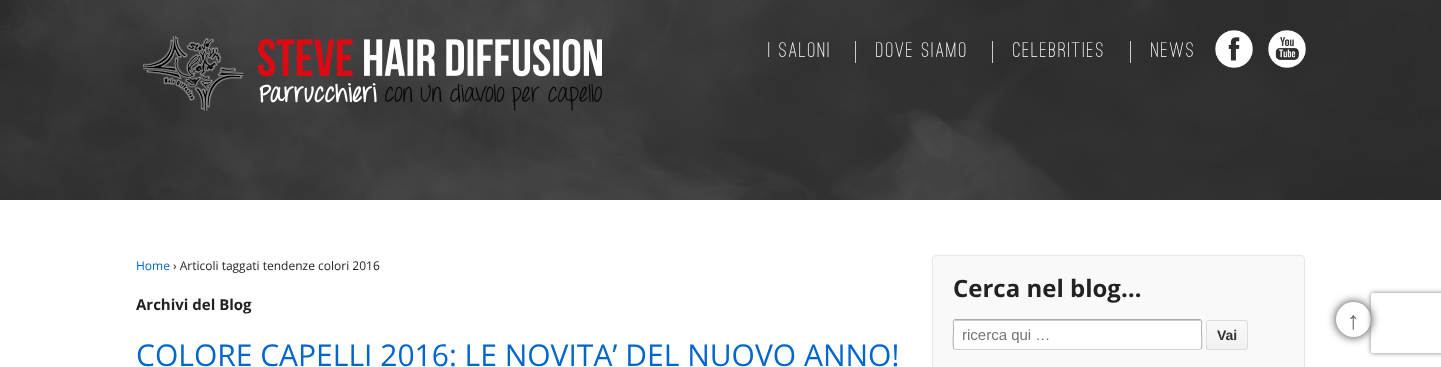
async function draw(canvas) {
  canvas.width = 1441;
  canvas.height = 367;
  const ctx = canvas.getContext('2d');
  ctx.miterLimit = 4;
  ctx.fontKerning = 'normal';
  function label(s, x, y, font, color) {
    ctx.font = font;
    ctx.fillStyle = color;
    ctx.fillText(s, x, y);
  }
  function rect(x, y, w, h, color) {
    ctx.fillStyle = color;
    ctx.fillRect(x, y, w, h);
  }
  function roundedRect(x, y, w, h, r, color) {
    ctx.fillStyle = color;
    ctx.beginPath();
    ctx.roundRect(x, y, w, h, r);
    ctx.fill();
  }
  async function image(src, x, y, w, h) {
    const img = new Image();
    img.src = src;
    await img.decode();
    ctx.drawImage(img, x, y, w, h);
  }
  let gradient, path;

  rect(0, 0, 1441, 367, '#fff');
  await image('assets/img1.png', 0, 0, 1441, 200);
  await image('assets/img2.png', 143, 36, 459, 75);
  ctx.letterSpacing = '2px';
  label('I SALONI', 768, 57, '500 22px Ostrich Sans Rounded', '#fff');
  label('DOVE SIAMO', 876, 57, '500 22px Ostrich Sans Rounded', '#fff');
  rect(855, 41, 1, 22, '#ccc');
  label('CELEBRITIES', 1013, 57, '500 22px Ostrich Sans Rounded', '#fff');
  rect(992, 41, 1, 22, '#ccc');
  label('NEWS', 1151, 57, '500 22px Ostrich Sans Rounded', '#fff');
  rect(1130, 41, 1, 22, '#ccc');
  await image('assets/img3.png', 1215, 30, 38, 38);
  await image('assets/img4.png', 1268, 30, 38, 38);
  ctx.letterSpacing = '0px';
  label('Home', 136, 270, '12px Open Sans', '#06c');
  label('› Articoli taggati tendenze colori 2016', 173, 270, '12px Open Sans', '#222');
  label('Archivi del Blog', 136, 310, 'bold 15px Open Sans', '#222');
  label('COLORE CAPELLI 2016: LE NOVITA’ DEL NUOVO ANNO!', 136, 366, '30px Open Sans', '#06c');
  ctx.fillStyle = '#f9f9f9';
  ctx.beginPath();
  ctx.roundRect(932.5, 255.5, 372, 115, 3.5);
  ctx.fill();
  ctx.strokeStyle = '#e5e5e5';
  ctx.stroke();
  label('Cerca nel blog…', 953, 297, 'bold 24px Open Sans', '#222');
  ctx.fillStyle = '#fff';
  path = new Path2D('M953 348C953 349 953 351 955 351H1200C1202 351 1202 349 1202 348C1202 349 1201 350 1200 350H955C954 350 953 349 953 348Z');
  ctx.fill(path);
  roundedRect(953, 319, 249, 31, 2, '#fff');
  ctx.fillStyle = '#ccc';
  path = new Path2D('M955 320L954 321H1200L1201 322C1201 321 1201 320 1200 320ZM1201 347V349Z');
  ctx.fill(path, 'evenodd');
  path = new Path2D('M1201 349L1200 349.5H955L954 349');
  ctx.strokeStyle = '#ccc';
  ctx.stroke(path);
  path = new Path2D('M954 349C952.5 348 953.5 332.5 953.5 330V325.5C953.5 325 952.5 319.5 955 319.5H1200C1202.5 319.5 1201.5 325 1201.5 325.5V330C1201.5 332.5 1202.5 348 1201 349');
  ctx.strokeStyle = '#aaa';
  ctx.stroke(path);
  label('ricerca qui …', 962, 340, '15px Liberation Sans', '#757575');
  ctx.save();
  ctx.beginPath();
  ctx.roundRect(1206, 320, 42, 30, 2);
  ctx.clip();
  gradient = ctx.createLinearGradient(1227, 321, 1227, 349);
  gradient.addColorStop(0, '#f9f9f9');
  gradient.addColorStop(1, '#f1f1f1');
  ctx.fillStyle = gradient;
  ctx.fillRect(1206, 321, 42, 28);
  ctx.restore();
  ctx.beginPath();
  ctx.roundRect(1206.5, 320.5, 41, 29, 1.5);
  ctx.strokeStyle = '#ddd';
  ctx.stroke();
  label('Vai', 1217, 340, 'bold 14px Liberation Sans', '#333');
  ctx.filter = 'blur(5px)';
  ctx.beginPath();
  ctx.roundRect(1336, 302, 35, 35, 17.5);
  ctx.fill();
  ctx.filter = 'none';
  ctx.fillStyle = '#fff';
  ctx.beginPath();
  ctx.arc(1353.5, 319.5, 17.5, 0, 2 * Math.PI);
  ctx.fill();
  label('↑', 1347, 329, '25px Liberation Serif', '#666');
  ctx.save();
  path = new Path2D('M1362 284H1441V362H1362ZM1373 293H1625C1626 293 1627 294 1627 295V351C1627 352 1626 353 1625 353H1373C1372 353 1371 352 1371 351V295C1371 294 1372 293 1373 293Z');
  ctx.clip(path, 'evenodd');
  ctx.fillStyle = '#808080';
  ctx.filter = 'blur(2.5px)';
  ctx.beginPath();
  ctx.roundRect(1371, 293, 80, 60, 2);
  ctx.fill();
  ctx.filter = 'none';
  ctx.restore();
}

draw(document.querySelector('canvas'));
